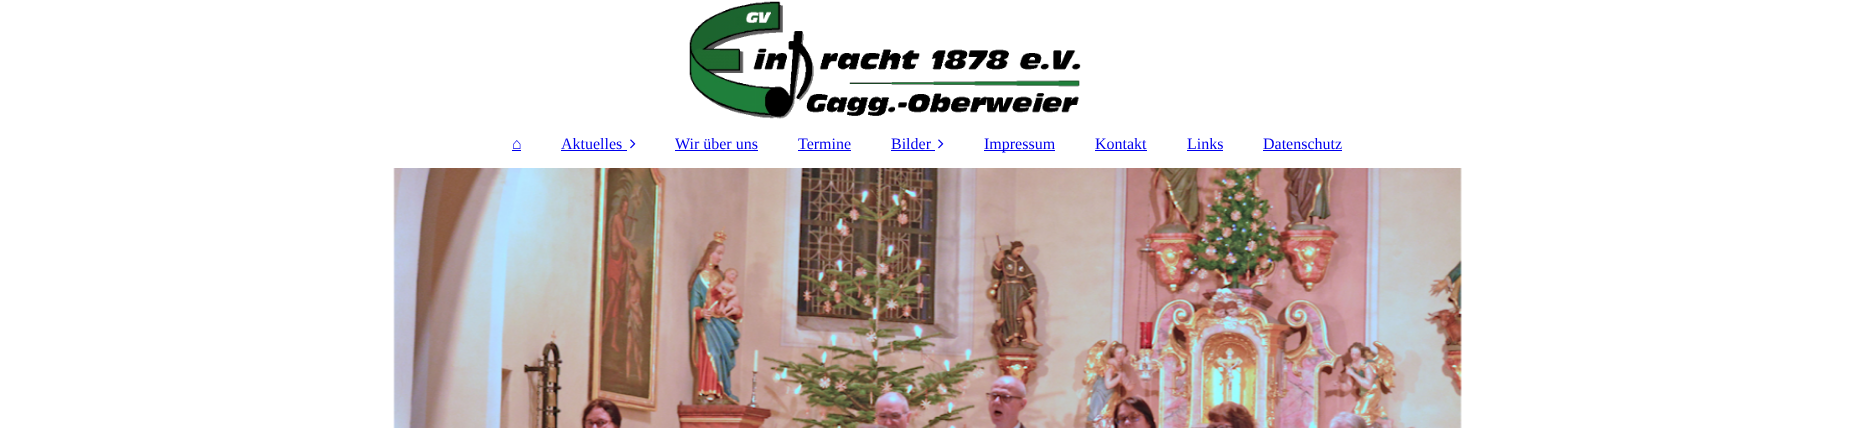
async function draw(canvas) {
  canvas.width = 1854;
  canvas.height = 428;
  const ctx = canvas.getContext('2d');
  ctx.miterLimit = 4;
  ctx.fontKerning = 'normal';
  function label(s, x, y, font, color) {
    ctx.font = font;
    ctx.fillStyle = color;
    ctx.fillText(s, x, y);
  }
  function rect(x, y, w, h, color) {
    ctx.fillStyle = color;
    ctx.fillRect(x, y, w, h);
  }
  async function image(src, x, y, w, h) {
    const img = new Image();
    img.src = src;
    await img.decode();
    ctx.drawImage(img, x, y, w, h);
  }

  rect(0, 0, 1854, 428, '#fff');
  await image('assets/img1.png', 689, 1, 392, 118);
  label('⌂', 512, 149, '16px Liberation Serif', '#00e');
  rect(512, 150, 9, 1, '#00e');
  label('Aktuelles', 561, 149, '16px Liberation Serif', '#00e');
  rect(561, 150, 66, 1, '#00e');
  await image('assets/img2.png', 630, 139, 6, 10);
  label('Wir über uns', 675, 149, '16px Liberation Serif', '#00e');
  rect(675, 150, 83, 1, '#00e');
  label('Termine', 798, 149, '16px Liberation Serif', '#00e');
  rect(798, 150, 53, 1, '#00e');
  label('Bilder', 891, 149, '16px Liberation Serif', '#00e');
  rect(891, 150, 44, 1, '#00e');
  await image('assets/img2.png', 938, 139, 6, 10);
  rect(984, 150, 71, 1, '#00e');
  label('Impressum', 984, 149, '16px Liberation Serif', '#00e');
  label('Kontakt', 1095, 149, '16px Liberation Serif', '#00e');
  rect(1095, 150, 52, 1, '#00e');
  label('Links', 1187, 149, '16px Liberation Serif', '#00e');
  rect(1187, 150, 36, 1, '#00e');
  label('Datenschutz', 1263, 149, '16px Liberation Serif', '#00e');
  rect(1263, 150, 79, 1, '#00e');
  await image('assets/img3.png', 393, 168, 1069, 260);
}

draw(document.querySelector('canvas'));
